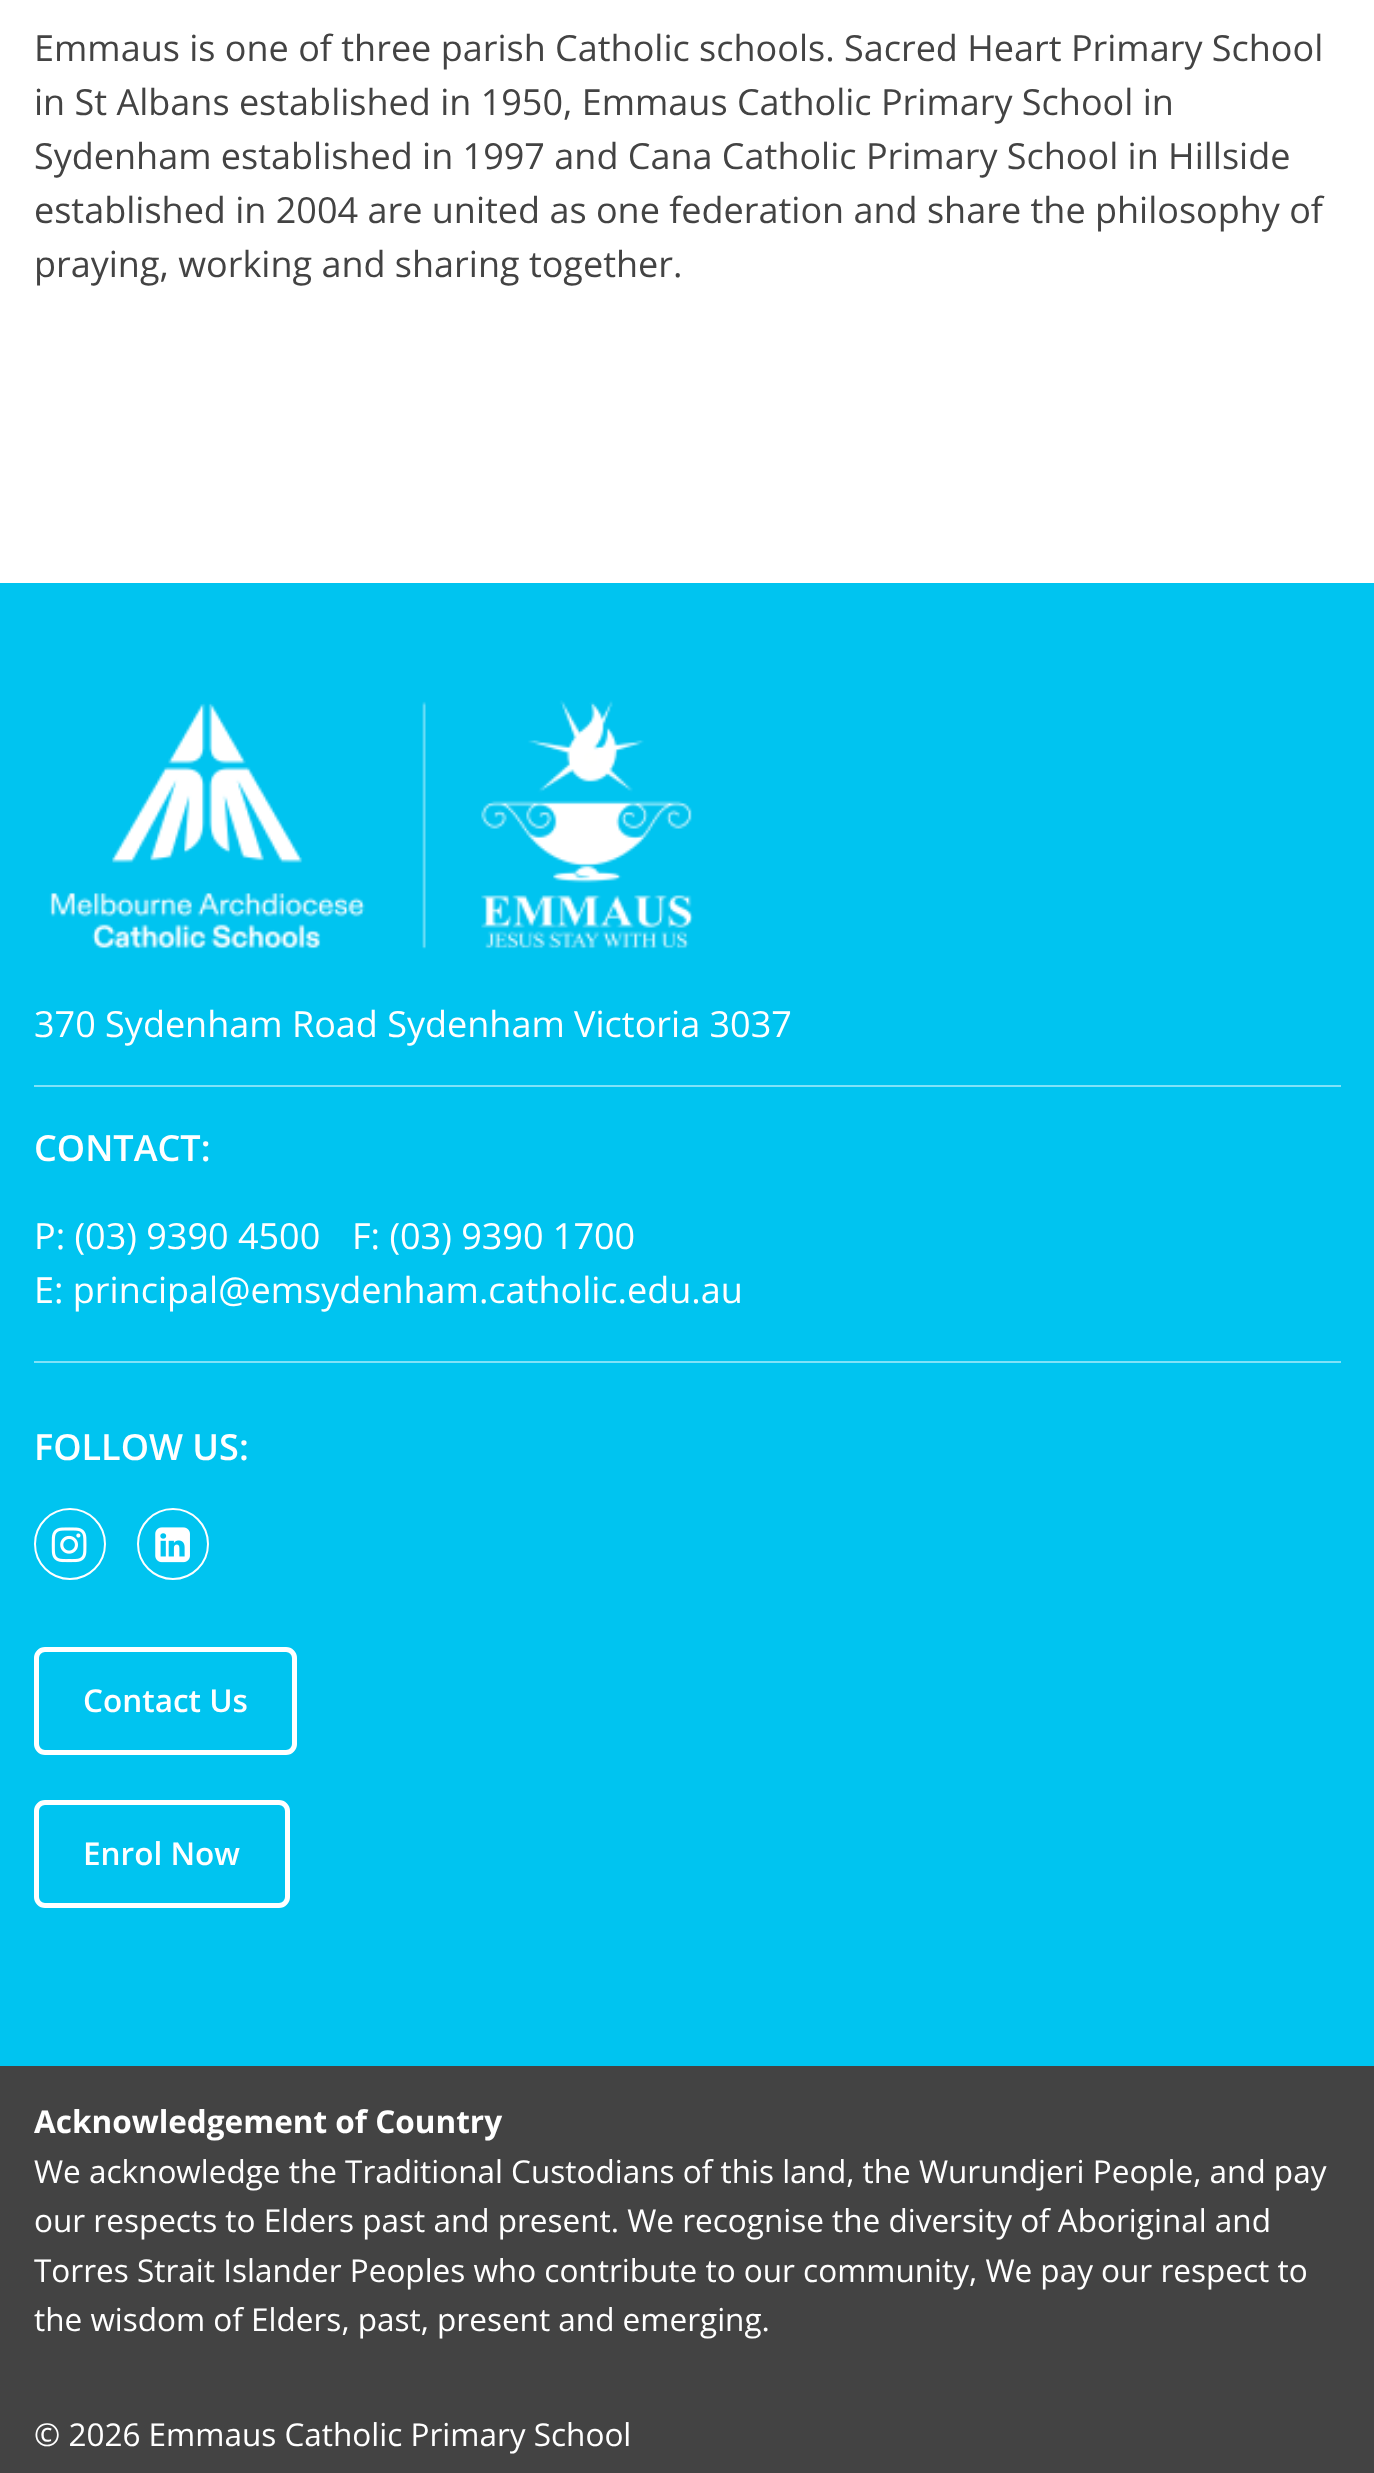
async function draw(canvas) {
  canvas.width = 1374;
  canvas.height = 2473;
  const ctx = canvas.getContext('2d');
  ctx.miterLimit = 4;
  ctx.fontKerning = 'normal';
  function label(s, x, y, font, color) {
    ctx.font = font;
    ctx.fillStyle = color;
    ctx.fillText(s, x, y);
  }
  function rect(x, y, w, h, color) {
    ctx.fillStyle = color;
    ctx.fillRect(x, y, w, h);
  }
  async function image(src, x, y, w, h) {
    const img = new Image();
    img.src = src;
    await img.decode();
    ctx.drawImage(img, x, y, w, h);
  }

  rect(0, 0, 1374, 2473, '#fff');
  label('Emmaus is one of three parish Catholic schools. Sacred Heart Primary School', 34, 61, '36px Open Sans', '#434343');
  label('in St Albans established in 1950, Emmaus Catholic Primary School in', 34, 115, '36px Open Sans', '#434343');
  label('Sydenham established in 1997 and Cana Catholic Primary School in Hillside', 34, 169, '36px Open Sans', '#434343');
  label('established in 2004 are united as one federation and share the philosophy of', 34, 223, '36px Open Sans', '#434343');
  label('praying, working and sharing together.', 34, 277, '36px Open Sans', '#434343');
  rect(0, 583, 1374, 1483, '#00c4f0');
  rect(34, 1085, 1307, 2, '#80e2f8');
  await image('assets/img1.png', 49, 700, 645, 249);
  label('370 Sydenham Road Sydenham Victoria 3037', 34, 1037, '36px Open Sans', '#fff');
  rect(34, 1361, 1307, 2, '#80e2f8');
  label('CONTACT:', 34, 1161, '600 36px Open Sans', '#fff');
  label('P: (03) 9390 4500', 34, 1249, '36px Open Sans', '#fff');
  label('F: (03) 9390 1700', 352, 1249, '36px Open Sans', '#fff');
  label('E: principal@emsydenham.catholic.edu.au', 34, 1303, '36px Open Sans', '#fff');
  label('FOLLOW US:', 34, 1460, '600 36px Open Sans', '#fff');
  ctx.beginPath();
  ctx.arc(70, 1544, 35, 0, 2 * Math.PI);
  ctx.strokeStyle = '#fff';
  ctx.lineWidth = 2;
  ctx.stroke();
  await image('assets/img2.png', 51, 1527, 36, 36);
  ctx.beginPath();
  ctx.arc(173, 1544, 35, 0, 2 * Math.PI);
  ctx.stroke();
  await image('assets/img3.png', 155, 1527, 35, 36);
  ctx.beginPath();
  ctx.roundRect(36.5, 1649.5, 258, 103, 8.5);
  ctx.lineWidth = 5;
  ctx.stroke();
  label('Contact Us', 83, 1712, '600 31.5px Open Sans', '#fff');
  ctx.beginPath();
  ctx.roundRect(36.5, 1802.5, 251, 103, 8.5);
  ctx.stroke();
  label('Enrol Now', 83, 1865, '600 31.5px Open Sans', '#fff');
  rect(0, 2066, 1374, 407, '#434343');
  label('Acknowledgement of Country', 34, 2133, 'bold 31.5px Open Sans', '#fff');
  label('We acknowledge the Traditional Custodians of this land, the Wurundjeri People, and pay', 34, 2183, '31.5px Open Sans', '#fff');
  label('our respects to Elders past and present. We recognise the diversity of Aboriginal and', 34, 2232, '31.5px Open Sans', '#fff');
  label('Torres Strait Islander Peoples who contribute to our community, We pay our respect to', 34, 2282, '31.5px Open Sans', '#fff');
  label('the wisdom of Elders, past, present and emerging.', 34, 2331, '31.5px Open Sans', '#fff');
  label('© 2026 Emmaus Catholic Primary School', 34, 2446, '31.5px Open Sans', '#fff');
}

draw(document.querySelector('canvas'));
